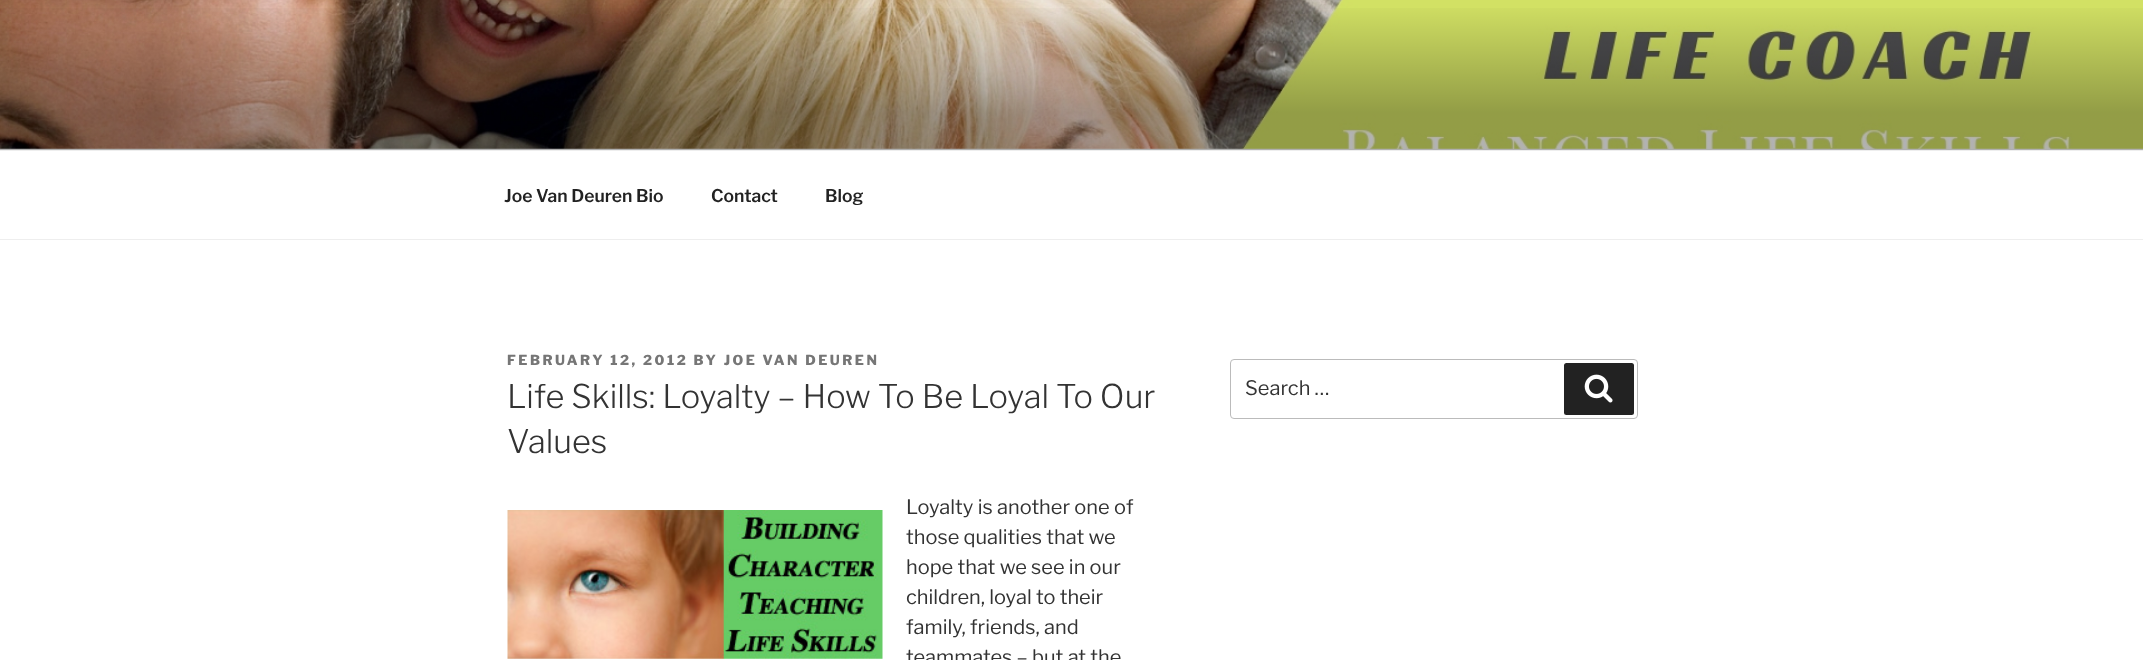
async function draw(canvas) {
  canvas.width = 2143;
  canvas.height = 660;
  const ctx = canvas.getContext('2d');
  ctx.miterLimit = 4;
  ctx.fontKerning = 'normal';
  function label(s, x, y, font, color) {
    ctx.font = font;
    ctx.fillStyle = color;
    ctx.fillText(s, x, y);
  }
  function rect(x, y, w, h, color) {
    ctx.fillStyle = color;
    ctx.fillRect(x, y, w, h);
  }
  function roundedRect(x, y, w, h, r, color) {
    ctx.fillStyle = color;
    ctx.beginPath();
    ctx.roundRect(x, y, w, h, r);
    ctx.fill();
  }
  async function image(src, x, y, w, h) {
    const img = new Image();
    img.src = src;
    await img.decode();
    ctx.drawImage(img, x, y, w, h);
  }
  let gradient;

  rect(0, 0, 2143, 660, '#fff');
  rect(0, 148, 2143, 2, '#fafafa');
  await image('assets/img1.png', 0, 0, 2143, 149);
  gradient = ctx.createLinearGradient(1072, 0, 1072, 150);
  gradient.addColorStop(0, '#00000000');
  gradient.addColorStop(0.75, '#0000004d');
  gradient.addColorStop(1, '#0000004d');
  ctx.fillStyle = gradient;
  ctx.fillRect(0, 8, 2143, 142);
  rect(0, 150, 2143, 1, '#eee');
  rect(0, 239, 2143, 1, '#eee');
  label('Joe Van Deuren Bio', 504, 202, '600 17.5px Libre Franklin', '#222');
  label('Contact', 711, 202, '600 17.5px Libre Franklin', '#222');
  label('Blog', 825, 202, '600 17.5px Libre Franklin', '#222');
  ctx.letterSpacing = '2.5px';
  label('FEBRUARY 12, 2012 BY JOE VAN DEUREN', 507, 365, '800 13.75px Libre Franklin', '#767676');
  ctx.letterSpacing = '0px';
  label('Life Skills: Loyalty – How To Be Loyal To Our', 507, 408, '300 32.5px Libre Franklin', '#333');
  label('Values', 507, 453, '300 32.5px Libre Franklin', '#333');
  await image('assets/img2.png', 507, 510, 376, 149);
  label('Loyalty is another one of', 906, 514, '20px Libre Franklin', '#333');
  label('those qualities that we', 906, 544, '20px Libre Franklin', '#333');
  label('hope that we see in our', 906, 574, '20px Libre Franklin', '#333');
  label('children, loyal to their', 906, 604, '20px Libre Franklin', '#333');
  label('family, friends, and', 906, 634, '20px Libre Franklin', '#333');
  label('teammates – but at the', 906, 664, '20px Libre Franklin', '#333');
  ctx.beginPath();
  ctx.roundRect(1230.5, 359.5, 407, 59, 3.5);
  ctx.strokeStyle = '#bbb';
  ctx.stroke();
  label('Search …', 1245, 395, '20px Libre Franklin', '#333');
  roundedRect(1564, 363, 70, 52, 2.5, '#222');
  await image('assets/img3.png', 1584, 374, 29, 29);
}

draw(document.querySelector('canvas'));
